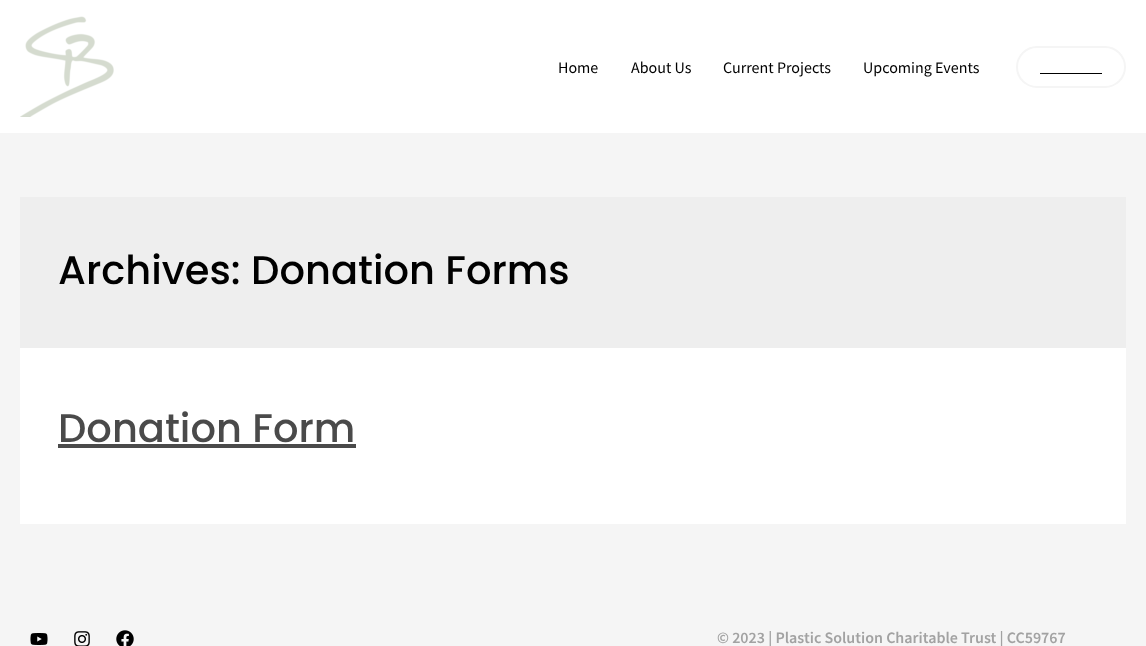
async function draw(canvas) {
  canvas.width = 1146;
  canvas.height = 646;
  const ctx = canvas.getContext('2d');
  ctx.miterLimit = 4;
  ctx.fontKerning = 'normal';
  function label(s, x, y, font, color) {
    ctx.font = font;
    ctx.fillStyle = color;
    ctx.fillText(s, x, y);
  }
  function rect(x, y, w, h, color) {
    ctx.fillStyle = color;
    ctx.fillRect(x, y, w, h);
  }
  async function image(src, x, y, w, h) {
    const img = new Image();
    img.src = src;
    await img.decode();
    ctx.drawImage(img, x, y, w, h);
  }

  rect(0, 0, 1146, 646, '#f5f5f5');
  rect(0, 0, 1146, 133, '#fff');
  await image('assets/img1.png', 20, 16, 94, 101);
  label('Home', 558, 73, '16px Source Sans Pro', '#000');
  label('About Us', 631, 73, '16px Source Sans Pro', '#000');
  label('Current Projects', 723, 73, '16px Source Sans Pro', '#000');
  label('Upcoming Events', 863, 73, '16px Source Sans Pro', '#000');
  ctx.beginPath();
  ctx.roundRect(1017, 47, 108, 40, 20);
  ctx.strokeStyle = '#f5f5f5';
  ctx.lineWidth = 2;
  ctx.stroke();
  rect(1040, 73, 62, 1, '#000');
  rect(20, 197, 1106, 151, '#eee');
  label('Archives: Donation Forms', 58, 284, '500 40px Poppins', '#000');
  rect(20, 348, 1106, 176, '#fff');
  label('Donation Form', 58, 442, '500 40px Poppins', '#4a4a4a');
  rect(58, 444, 298, 4, '#4a4a4a');
  await image('assets/img2.png', 30, 633, 18, 12);
  await image('assets/img3.png', 74, 631, 16, 15);
  await image('assets/img4.png', 116, 630, 18, 16);
  label('© 2023 | Plastic Solution Charitable Trust | CC59767', 717, 643, '600 16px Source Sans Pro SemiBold', '#a2a2a2');
}

draw(document.querySelector('canvas'));
